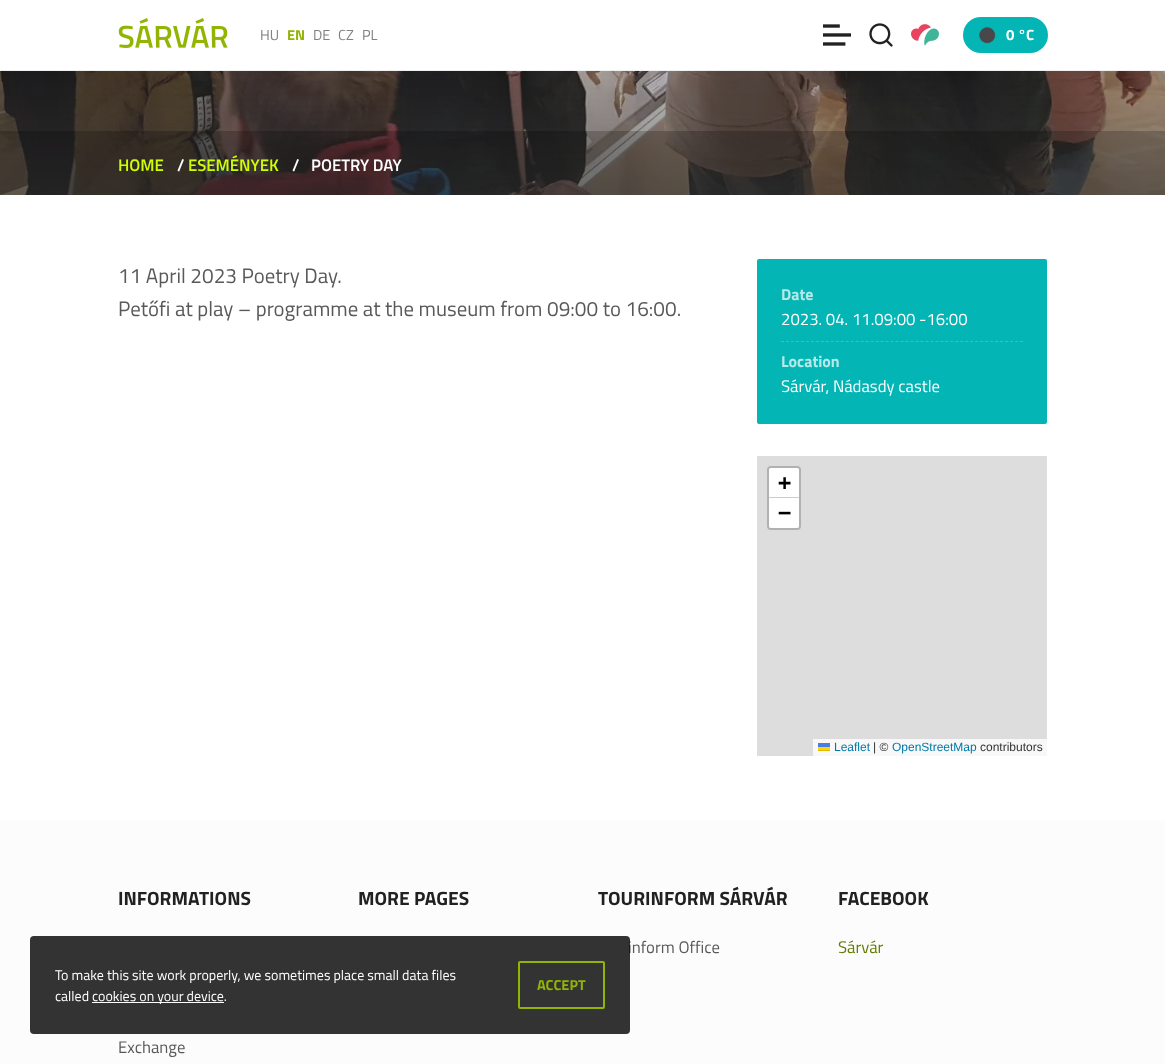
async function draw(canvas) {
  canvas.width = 1165;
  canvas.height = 1064;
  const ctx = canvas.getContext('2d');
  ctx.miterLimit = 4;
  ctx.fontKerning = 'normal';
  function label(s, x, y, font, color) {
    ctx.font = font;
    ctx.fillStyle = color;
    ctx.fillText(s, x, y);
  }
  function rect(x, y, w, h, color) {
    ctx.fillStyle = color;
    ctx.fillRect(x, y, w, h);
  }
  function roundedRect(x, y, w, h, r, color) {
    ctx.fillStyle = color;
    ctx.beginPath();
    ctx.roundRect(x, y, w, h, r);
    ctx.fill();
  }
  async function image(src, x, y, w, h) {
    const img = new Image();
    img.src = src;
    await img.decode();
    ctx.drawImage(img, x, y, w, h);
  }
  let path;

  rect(0, 0, 1165, 1064, '#fff');
  rect(0, 70, 1165, 1, '#efefef');
  await image('assets/img1.png', 118, 18, 110, 30);
  label('HU', 260, 40, '14.5px Titillium Web', '#808080');
  label('EN', 287, 40, 'bold 14.5px Titillium Web', '#92b503');
  label('DE', 313, 40, '14.5px Titillium Web', '#808080');
  label('CZ', 338, 40, '14.5px Titillium Web', '#808080');
  label('PL', 362, 40, '14.5px Titillium Web', '#808080');
  await image('assets/img2.png', 823, 24, 28, 22);
  await image('assets/img3.png', 869, 23, 24, 24);
  await image('assets/img4.png', 911, 24, 28, 22);
  roundedRect(963, 17, 85, 36, 18, '#03b5b5');
  await image('assets/img5.png', 979, 27, 17, 17);
  label('0 °C', 1006, 40, 'bold 15px Titillium Web', '#fff');
  await image('assets/img6.png', 0, 71, 1165, 124);
  rect(0, 131, 1165, 64, '#00000033');
  label('HOME', 118, 171, '600 16.75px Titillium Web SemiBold', '#cdff00');
  label('/', 177, 171, '600 16.75px Titillium Web SemiBold', '#fff');
  label('ESEMÉNYEK', 188, 171, '600 16.75px Titillium Web SemiBold', '#cdff00');
  label('/', 292, 171, '600 16.75px Titillium Web SemiBold', '#fff');
  label('POETRY DAY', 311, 171, '600 16.75px Titillium Web SemiBold', '#fff');
  label('11 April 2023 Poetry Day.', 118, 283, '20.8px Titillium Web', '#595959');
  label('Petőfi at play – programme at the museum from 09:00 to 16:00.', 118, 316, '20.8px Titillium Web', '#595959');
  roundedRect(757, 259, 290, 165, 2, '#03b5b5');
  label('Date', 781, 300, 'bold 16px Titillium Web', '#b3e9e9');
  label('2023. 04. 11.09:00 -16:00', 781, 325, '16.75px Titillium Web', '#fff');
  path = new Path2D('M781 341.5H1023');
  ctx.strokeStyle = '#35c4c4';
  ctx.setLineDash([3, 1.98]);
  ctx.stroke(path);
  label('Location', 781, 367, 'bold 16px Titillium Web', '#b3e9e9');
  label('Sárvár, Nádasdy castle', 781, 392, '16.75px Titillium Web', '#fff');
  rect(757, 456, 290, 300, '#ddd');
  ctx.beginPath();
  ctx.roundRect(768, 467, 32, 62, 3);
  ctx.strokeStyle = '#b1b1b1';
  ctx.lineWidth = 2;
  ctx.setLineDash([]);
  ctx.stroke();
  ctx.fillStyle = '#fff';
  ctx.beginPath();
  ctx.roundRect(769, 468, 30, 30, [2, 2, 0, 0]);
  ctx.fill();
  rect(769, 497, 30, 1, '#ccc');
  label('+', 778, 490, 'bold 22px DejaVu Sans Mono', '#000');
  ctx.fillStyle = '#fff';
  ctx.beginPath();
  ctx.roundRect(769, 498, 30, 30, [0, 0, 2, 2]);
  ctx.fill();
  label('−', 778, 520, 'bold 22px DejaVu Sans Mono', '#000');
  rect(813, 739, 234, 17, '#f8f8f8');
  label('Leaflet', 834, 751, '12px Liberation Sans', '#0078a8');
  rect(818, 743, 12, 4, '#4c7be1');
  rect(818, 747, 12, 3, '#ffd500');
  rect(818, 750, 12, 1, '#e0bc00');
  label('| ©', 873, 751, '12px Liberation Sans', '#333');
  label('OpenStreetMap', 892, 751, '12px Liberation Sans', '#0078a8');
  label('contributors', 980, 751, '12px Liberation Sans', '#333');
  rect(0, 820, 1165, 244, '#fcfcfc');
  label('INFORMATIONS', 118, 905, 'bold 19.25px Titillium Web', '#212121');
  label('Exchange', 118, 1053, '16.75px Titillium Web', '#595959');
  label('MORE PAGES', 358, 905, 'bold 19.25px Titillium Web', '#212121');
  label('TOURINFORM SÁRVÁR', 598, 905, 'bold 19.25px Titillium Web', '#212121');
  label('inform Office', 628, 953, '16.75px Titillium Web', '#595959');
  label('FACEBOOK', 838, 905, 'bold 19.25px Titillium Web', '#212121');
  label('Sárvár', 838, 953, '16.75px Titillium Web', '#647c03');
  roundedRect(30, 936, 600, 98, 4, '#000000cc');
  label('To make this site work properly, we sometimes place small data files', 55, 980, '14px Titillium Web', '#fff');
  label('called', 55, 1001, '14px Titillium Web', '#fff');
  rect(92, 1002, 132, 1, '#fff');
  label('cookies on your device.', 92, 1001, '14px Titillium Web', '#fff');
  ctx.beginPath();
  ctx.roundRect(519, 962, 85, 46, 1);
  ctx.strokeStyle = '#92b503';
  ctx.stroke();
  label('ACCEPT', 537, 990, 'bold 14.5px Titillium Web', '#92b503');
}

draw(document.querySelector('canvas'));
